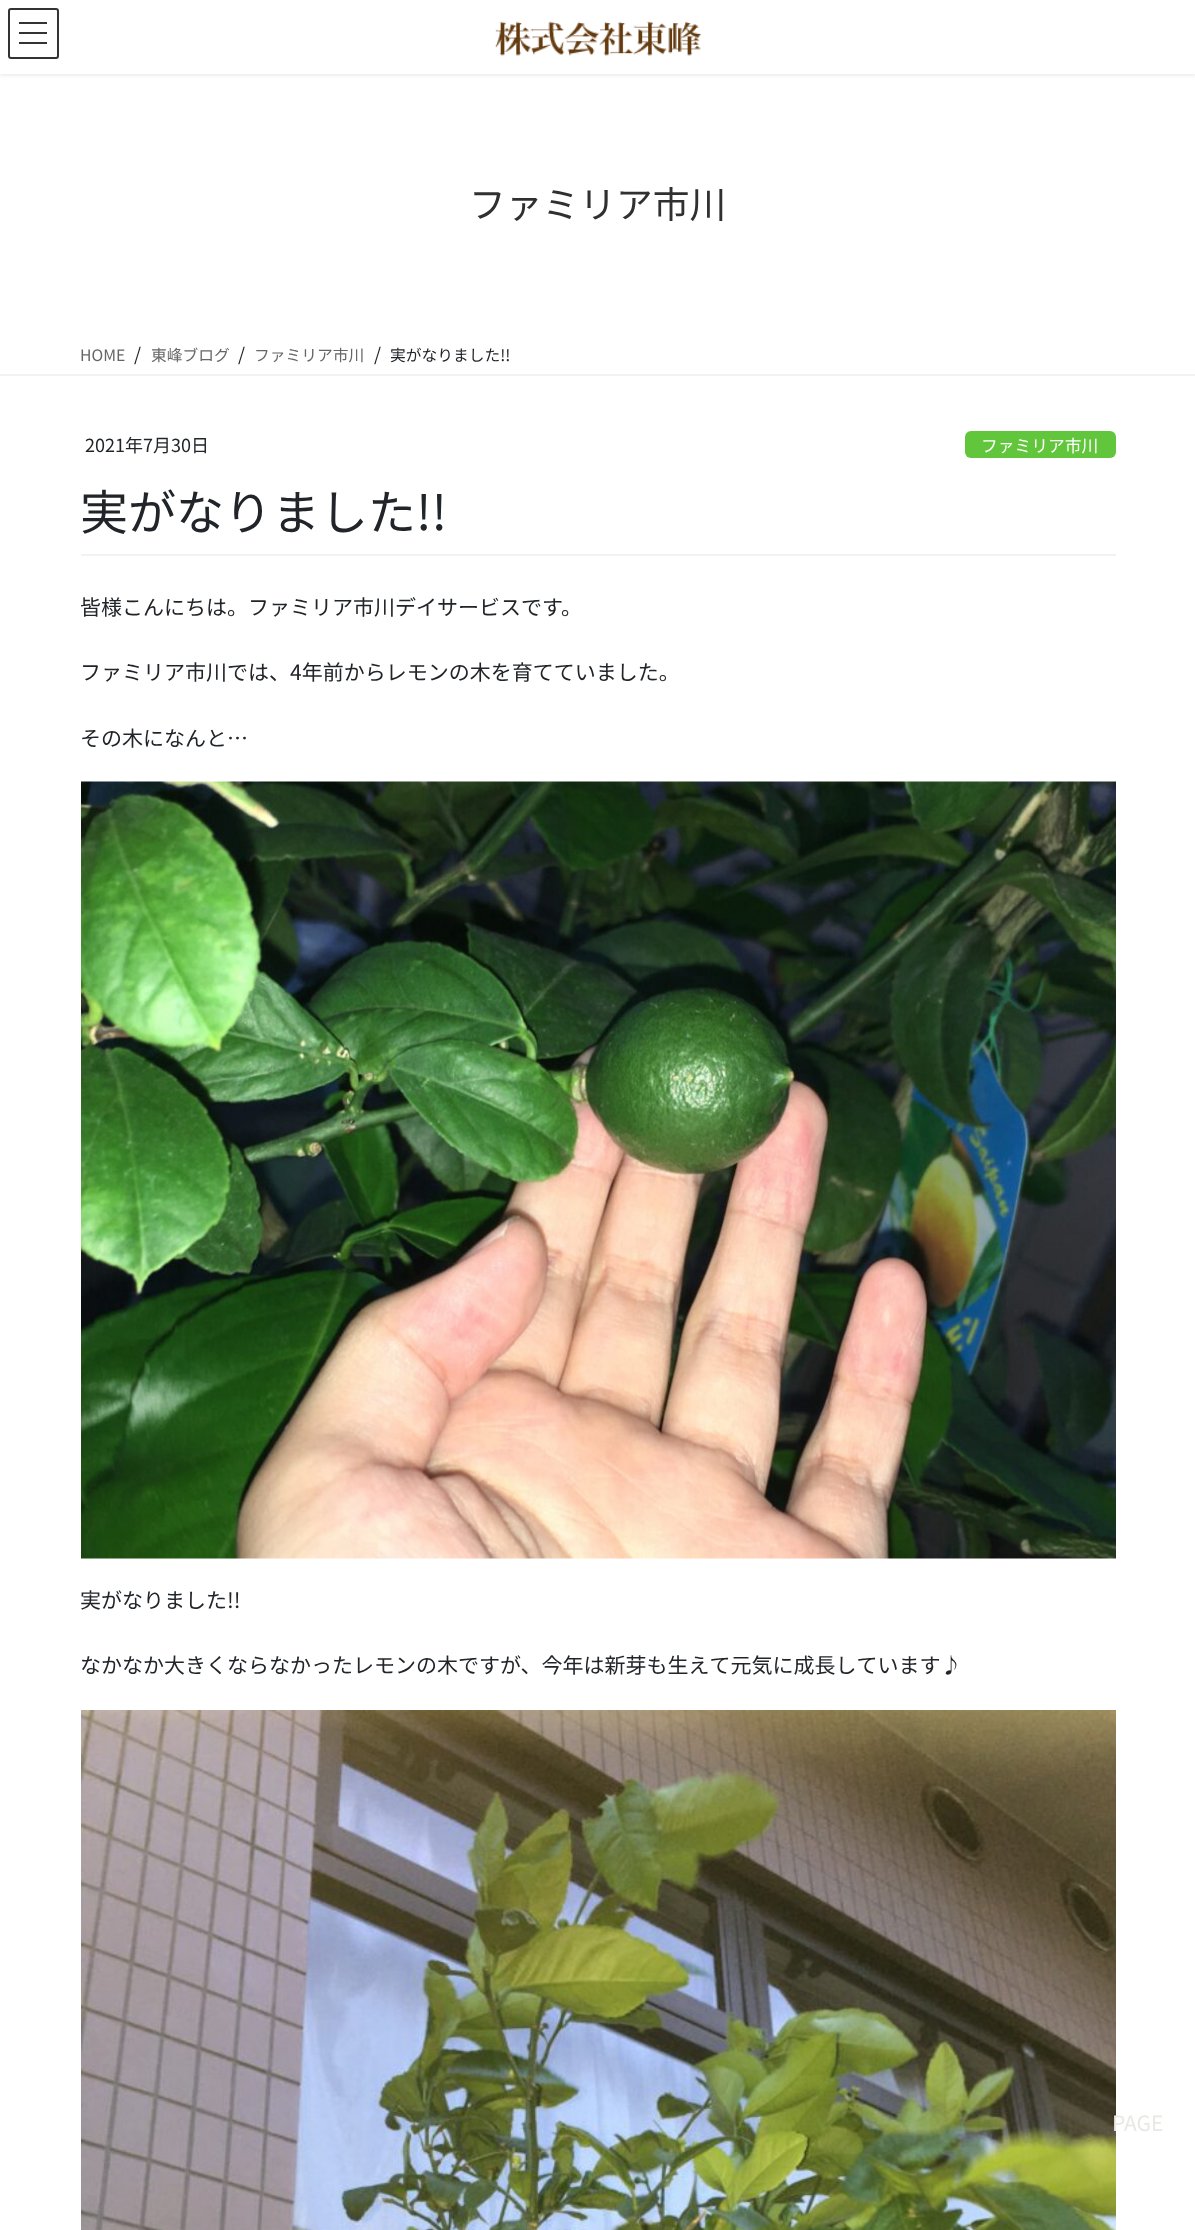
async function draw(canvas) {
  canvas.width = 1195;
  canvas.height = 2230;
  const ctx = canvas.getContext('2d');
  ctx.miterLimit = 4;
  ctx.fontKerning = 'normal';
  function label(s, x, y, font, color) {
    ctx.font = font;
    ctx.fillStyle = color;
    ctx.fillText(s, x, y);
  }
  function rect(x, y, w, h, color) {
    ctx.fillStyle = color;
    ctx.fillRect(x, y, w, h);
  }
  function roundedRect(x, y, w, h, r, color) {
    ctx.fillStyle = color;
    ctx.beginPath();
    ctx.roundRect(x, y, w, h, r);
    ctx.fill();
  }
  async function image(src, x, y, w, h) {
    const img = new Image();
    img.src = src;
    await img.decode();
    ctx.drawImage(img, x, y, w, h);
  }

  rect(0, 0, 1195, 2230, '#fff');
  ctx.fillStyle = '#0000001a';
  ctx.filter = 'blur(2px)';
  ctx.beginPath();
  ctx.rect(0, 2, 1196, 73);
  ctx.fill();
  ctx.filter = 'none';
  rect(0, 0, 1195, 74, '#fff');
  await image('assets/img1.png', 495, 21, 206, 35);
  rect(19, 22, 28, 2, '#333');
  rect(19, 32, 28, 2, '#333');
  rect(19, 42, 28, 2, '#333');
  ctx.beginPath();
  ctx.roundRect(9, 9, 49, 49, 2);
  ctx.strokeStyle = '#333';
  ctx.lineWidth = 2;
  ctx.stroke();
  label('ファミリア市川', 469, 218, '100 36.75px Noto Sans JP', '#303030');
  rect(0, 374, 1195, 2, '#f2f2f2');
  label('HOME', 80, 361, '100 15.75px Noto Sans JP', '#666');
  label('/', 134, 361, '100 18px Noto Sans JP', '#212529');
  label('東峰ブログ', 151, 361, '100 15.75px Noto Sans JP', '#666');
  label('/', 238, 361, '100 18px Noto Sans JP', '#212529');
  label('ファミリア市川', 254, 361, '100 15.75px Noto Sans JP', '#666');
  label('/', 374, 361, '100 18px Noto Sans JP', '#212529');
  label('実がなりました!!', 390, 361, '100 15.75px Noto Sans JP', '#212529');
  rect(81, 554, 1035, 2, '#f2f2f2');
  label('2021年7月30日', 85, 452, '100 18px Noto Sans JP', '#212529');
  roundedRect(965, 431, 151, 27, 6, '#61c63c');
  label('ファミリア市川', 981, 452, '100 16.75px Noto Sans JP', '#fff');
  label('実がなりました!!', 80, 530, '100 48px Noto Sans JP', '#212529');
  label('皆様こんにちは。ファミリア市川デイサービスです。', 80, 615, '100 21px Noto Sans JP', '#212529');
  label('ファミリア市川では、4年前からレモンの木を育てていました。', 80, 680, '100 21px Noto Sans JP', '#212529');
  label('その木になんと…', 80, 746, '100 21px Noto Sans JP', '#212529');
  await image('assets/img2.png', 81, 781, 1035, 778);
  label('実がなりました!!', 80, 1608, '100 21px Noto Sans JP', '#212529');
  label('なかなか大きくならなかったレモンの木ですが、今年は新芽も生えて元気に成長しています♪', 80, 1673, '100 21px Noto Sans JP', '#212529');
  await image('assets/img3.png', 81, 1710, 1035, 520);
  label('PAGE', 1112, 2131, '100 21px Noto Sans JP', '#e9e8e6');
}

draw(document.querySelector('canvas'));
